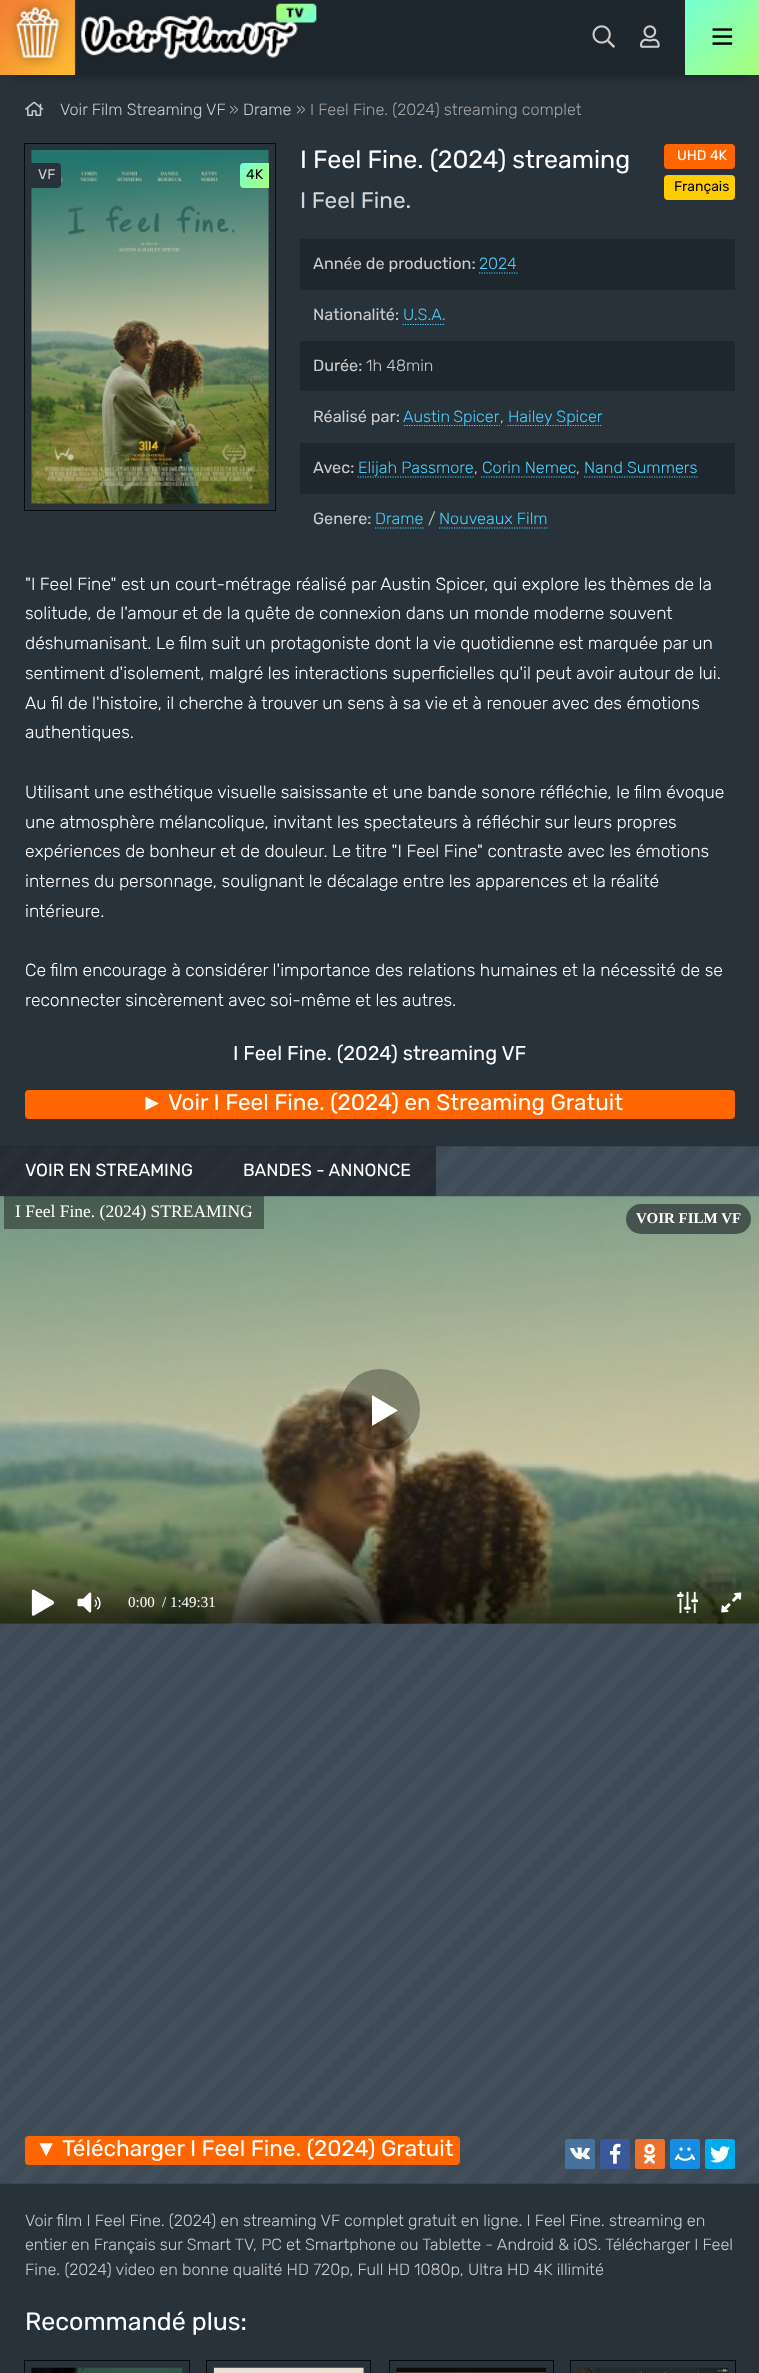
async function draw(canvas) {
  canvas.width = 759;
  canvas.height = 2373;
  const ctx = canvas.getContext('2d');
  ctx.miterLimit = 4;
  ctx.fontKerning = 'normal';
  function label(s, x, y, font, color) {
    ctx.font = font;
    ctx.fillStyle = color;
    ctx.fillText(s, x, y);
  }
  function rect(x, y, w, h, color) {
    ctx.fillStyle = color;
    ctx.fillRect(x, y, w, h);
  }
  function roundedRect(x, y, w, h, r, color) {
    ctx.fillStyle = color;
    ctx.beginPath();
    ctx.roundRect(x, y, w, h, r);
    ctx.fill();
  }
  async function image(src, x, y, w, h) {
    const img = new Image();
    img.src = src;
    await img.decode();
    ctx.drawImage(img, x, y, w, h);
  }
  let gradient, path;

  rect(0, 0, 759, 2373, '#27323b');
  ctx.fillStyle = '#00000066';
  ctx.filter = 'blur(6px)';
  ctx.beginPath();
  ctx.rect(13, 25, 735, 50);
  ctx.fill();
  ctx.filter = 'none';
  rect(74, 0, 611, 73, '#1e272e');
  await image('assets/img1.png', 0, 0, 317, 75);
  await image('assets/img2.png', 592, 25, 23, 23);
  await image('assets/img3.png', 640, 25, 20, 23);
  gradient = ctx.createLinearGradient(685, 0, 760, 75);
  gradient.addColorStop(0, '#78ffd6');
  gradient.addColorStop(1, '#a8ff78');
  ctx.fillStyle = gradient;
  ctx.fillRect(685, 0, 74, 75);
  await image('assets/img4.png', 712, 28, 21, 17);
  await image('assets/img5.png', 25, 101, 19, 15);
  label('Voir Film Streaming VF', 60, 115, '300 16.25px Rubik', '#ccc');
  label('»', 229, 115, '300 16.25px Rubik', '#a3a3a3');
  label('Drame', 243, 115, '300 16.25px Rubik', '#ccc');
  label('» I Feel Fine. (2024) streaming complet', 296, 115, '300 16.25px Rubik', '#a3a3a3');
  label('I Feel Fine. (2024) streaming', 300, 168, '25px Rubik', '#fff');
  ctx.fillStyle = '#f60';
  ctx.beginPath();
  ctx.roundRect(665.5, 145.5, 68, 22, 2.5);
  ctx.fill();
  ctx.strokeStyle = '#f60';
  ctx.lineWidth = 3;
  ctx.stroke();
  label('UHD 4K', 677, 160, '14px Rubik', '#fff');
  ctx.fillStyle = '#fc0';
  ctx.beginPath();
  ctx.roundRect(665.5, 176.5, 68, 22, 2.5);
  ctx.fill();
  ctx.strokeStyle = '#fc0';
  ctx.stroke();
  label('Français', 674, 191, '14px Rubik', '#000');
  label('I Feel Fine.', 300, 208, '22.5px Rubik', '#d4d6d8');
  rect(300, 239, 435, 51, '#1e272e');
  label('Année de production:', 313, 269, '16.25px Rubik', '#ccc');
  label('2024', 479, 269, '300 16.25px Rubik', '#4bcffa');
  path = new Path2D('M479 273H517.5');
  ctx.strokeStyle = '#4bcffa';
  ctx.lineWidth = 1.2;
  ctx.setLineDash([1.25, 1.25]);
  ctx.stroke(path);
  label('Nationalité:', 313, 320, '16.25px Rubik', '#ccc');
  label('U.S.A.', 403, 320, '300 16.25px Rubik', '#4bcffa');
  path = new Path2D('M402.5 324.5H445');
  ctx.stroke(path);
  rect(300, 341, 435, 50, '#1e272e');
  label('Durée:', 313, 371, '16.25px Rubik', '#ccc');
  label('1h 48min', 366, 371, '300 16.25px Rubik', '#ccc');
  label('Réalisé par:', 313, 422, '16.25px Rubik', '#ccc');
  path = new Path2D('M404 425.5H500');
  ctx.stroke(path);
  ctx.wordSpacing = '-1px';
  label('Austin Spicer', 403, 422, '300 16.25px Rubik', '#4bcffa');
  ctx.wordSpacing = '0px';
  label(',', 500, 422, '300 16.25px Rubik', '#ccc');
  path = new Path2D('M507.5 425.5H602.5');
  ctx.stroke(path);
  label('Hailey Spicer', 508, 422, '300 16.25px Rubik', '#4bcffa');
  rect(300, 443, 435, 51, '#1e272e');
  label('Avec:', 313, 473, '16.25px Rubik', '#ccc');
  path = new Path2D('M357.5 477H474');
  ctx.stroke(path);
  label('Elijah Passmore', 358, 473, '300 16.25px Rubik', '#4bcffa');
  label(',', 474, 473, '300 16.25px Rubik', '#ccc');
  label('Corin Nemec', 482, 473, '300 16.25px Rubik', '#4bcffa');
  path = new Path2D('M481 477H576');
  ctx.stroke(path);
  label(',', 576, 473, '300 16.25px Rubik', '#ccc');
  label('Nand Summers', 584, 473, '300 16.25px Rubik', '#4bcffa');
  path = new Path2D('M584 477H697.5');
  ctx.stroke(path);
  label('Genere:', 313, 524, '16.25px Rubik', '#ccc');
  label('Drame', 375, 524, '300 16.25px Rubik', '#4bcffa');
  path = new Path2D('M375 528H424');
  ctx.stroke(path);
  label('/', 428, 524, '300 16.25px Rubik', '#ccc');
  label('Nouveaux Film', 439, 524, '300 16.25px Rubik', '#4bcffa');
  path = new Path2D('M439 528H547.5');
  ctx.stroke(path);
  label('"I Feel Fine" est un court-métrage réalisé par Austin Spicer, qui explore les thèmes de la', 25, 590, '300 17.5px Rubik', '#fff');
  label('solitude, de l\'amour et de la quête de connexion dans un monde moderne souvent', 25, 619, '300 17.5px Rubik', '#fff');
  label('déshumanisant. Le film suit un protagoniste dont la vie quotidienne est marquée par un', 25, 649, '300 17.5px Rubik', '#fff');
  label('sentiment d\'isolement, malgré les interactions superficielles qu\'il peut avoir autour de lui.', 25, 679, '300 17.5px Rubik', '#fff');
  label('Au fil de l\'histoire, il cherche à trouver un sens à sa vie et à renouer avec des émotions', 25, 709, '300 17.5px Rubik', '#fff');
  label('authentiques.', 25, 738, '300 17.5px Rubik', '#fff');
  label('Utilisant une esthétique visuelle saisissante et une bande sonore réfléchie, le film évoque', 25, 798, '300 17.5px Rubik', '#fff');
  label('une atmosphère mélancolique, invitant les spectateurs à réfléchir sur leurs propres', 25, 828, '300 17.5px Rubik', '#fff');
  label('expériences de bonheur et de douleur. Le titre "I Feel Fine" contraste avec les émotions', 25, 857, '300 17.5px Rubik', '#fff');
  label('internes du personnage, soulignant le décalage entre les apparences et la réalité', 25, 887, '300 17.5px Rubik', '#fff');
  label('intérieure.', 25, 917, '300 17.5px Rubik', '#fff');
  label('Ce film encourage à considérer l\'importance des relations humaines et la nécessité de se', 25, 976, '300 17.5px Rubik', '#fff');
  label('reconnecter sincèrement avec soi-même et les autres.', 25, 1006, '300 17.5px Rubik', '#fff');
  ctx.strokeStyle = '#080a0c';
  ctx.lineWidth = 1;
  ctx.setLineDash([]);
  ctx.strokeRect(24.5, 143.5, 251, 367);
  await image('assets/img6.png', 31, 150, 238, 354);
  ctx.fillStyle = '#27323b';
  ctx.beginPath();
  ctx.roundRect(31, 163, 30, 25, [0, 4, 4, 0]);
  ctx.fill();
  label('VF', 38, 179, '14px Rubik', '#ccc');
  gradient = ctx.createLinearGradient(241, 162, 268, 188);
  gradient.addColorStop(0, '#78ffd6');
  gradient.addColorStop(1, '#a8ff78');
  ctx.fillStyle = gradient;
  ctx.beginPath();
  ctx.roundRect(240, 163, 29, 25, [4, 0, 0, 4]);
  ctx.fill();
  label('4K', 246, 179, '14px Rubik', '#000');
  label('I Feel Fine. (2024) streaming VF', 233, 1060, '20px Rubik', '#fff');
  ctx.fillStyle = '#f60';
  ctx.beginPath();
  ctx.roundRect(26.5, 1091.5, 707, 26, 2.5);
  ctx.fill();
  ctx.strokeStyle = '#f60';
  ctx.lineWidth = 3;
  ctx.stroke();
  label('►', 141, 1110, '22.5px Liberation Sans', '#fff');
  label('Voir I Feel Fine. (2024) en Streaming Gratuit', 168, 1110, '22.5px Rubik', '#fff');
  await image('assets/img7.png', 0, 1146, 759, 1038);
  rect(0, 1146, 218, 50, '#00000066');
  label('VOIR EN STREAMING', 25, 1176, '17.5px Rubik', '#fff');
  rect(218, 1146, 218, 50, '#00000066');
  label('BANDES - ANNONCE', 243, 1176, '17.5px Rubik', '#fff');
  await image('assets/img8.png', 0, 1196, 759, 428);
  rect(4, 1196, 260, 33, '#00000066');
  label('I Feel Fine. (2024) STREAMING', 15, 1217, '17.5px Liberation Serif', '#fff');
  roundedRect(626, 1204, 125, 30, 15, '#2a3134b3');
  label('VOIR FILM VF', 636, 1223, 'bold 15px Liberation Serif', '#fff');
  roundedRect(340, 1369, 80, 81, 40, '#0000004d');
  ctx.fillStyle = '#fff';
  path = new Path2D('M372 1395V1426L398 1410.5L372 1395');
  ctx.fill(path);
  await image('assets/img9.png', 0, 1524, 759, 100);
  await image('assets/img10.png', 31, 1589, 24, 27);
  await image('assets/img11.png', 77, 1592, 24, 21);
  label('0:00', 128, 1607, '15px Liberation Serif', '#fff');
  label('/ 1:49:31', 162, 1607, '15px Liberation Serif', '#fff');
  await image('assets/img12.png', 676, 1591, 23, 23);
  await image('assets/img13.png', 721, 1592, 21, 21);
  ctx.fillStyle = '#f60';
  ctx.beginPath();
  ctx.roundRect(26.5, 2137.5, 432, 26, 2.5);
  ctx.fill();
  ctx.stroke();
  label('▼', 35, 2156, '22.5px Liberation Sans', '#fff');
  label('Télécharger I Feel Fine. (2024) Gratuit', 62, 2156, '22.5px Rubik', '#fff');
  roundedRect(565, 2139, 30, 30, 2.5, '#48729e');
  await image('assets/img14.png', 570, 2147, 20, 13);
  roundedRect(600, 2139, 30, 30, 2.5, '#3b5998');
  await image('assets/img15.png', 610, 2143, 11, 21);
  roundedRect(635, 2139, 30, 30, 2.5, '#eb722e');
  await image('assets/img16.png', 643, 2143, 13, 21);
  roundedRect(670, 2139, 30, 30, 2.5, '#168de2');
  await image('assets/img17.png', 675, 2147, 20, 14);
  roundedRect(705, 2139, 30, 30, 2.5, '#00aced');
  await image('assets/img18.png', 710, 2146, 20, 17);
  label('Voir film I Feel Fine. (2024) en streaming VF complet gratuit en ligne. I Feel Fine. streaming en', 25, 2226, '300 16.25px Rubik', '#ccc');
  label('entier en Français sur Smart TV, PC et Smartphone ou Tablette - Android & iOS. Télécharger I Feel', 25, 2250, '300 16.25px Rubik', '#ccc');
  label('Fine. (2024) video en bonne qualité HD 720p, Full HD 1080p, Ultra HD 4K illimité', 25, 2275, '300 16.25px Rubik', '#ccc');
  label('Recommandé plus:', 25, 2330, '25px Rubik', '#fff');
  ctx.strokeStyle = '#080a0c';
  ctx.lineWidth = 1;
  ctx.strokeRect(24.5, 2360.5, 165, 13);
  await image('assets/img19.png', 31, 2367, 152, 6);
  ctx.strokeRect(206.5, 2360.5, 164, 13);
  await image('assets/img20.png', 213, 2367, 151, 6);
  ctx.strokeRect(389.5, 2360.5, 164, 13);
  await image('assets/img21.png', 396, 2367, 150, 6);
  ctx.strokeRect(570.5, 2360.5, 165, 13);
  await image('assets/img22.png', 577, 2367, 152, 6);
}

draw(document.querySelector('canvas'));
